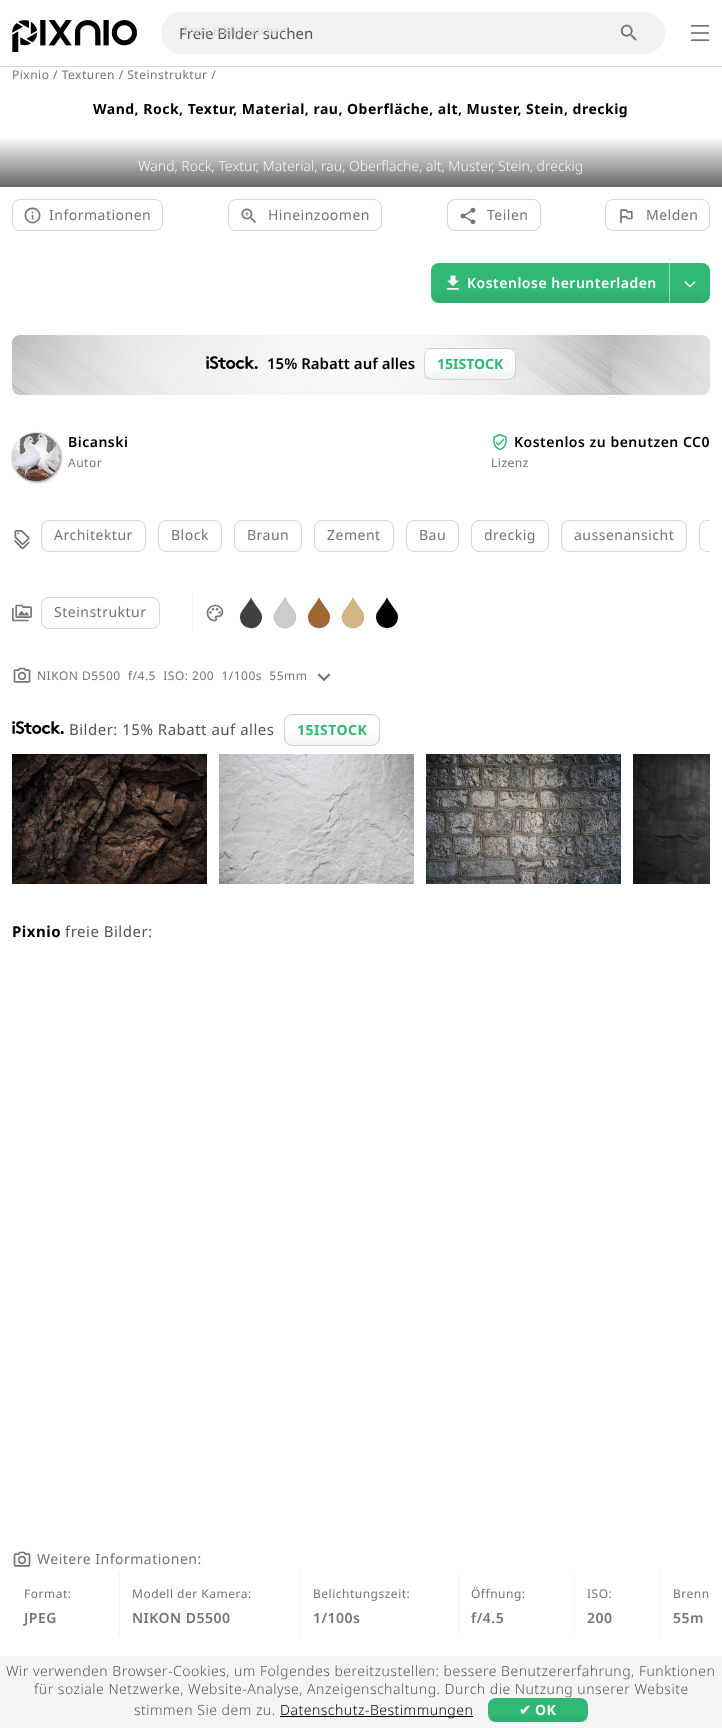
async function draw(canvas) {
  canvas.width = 722;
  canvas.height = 1728;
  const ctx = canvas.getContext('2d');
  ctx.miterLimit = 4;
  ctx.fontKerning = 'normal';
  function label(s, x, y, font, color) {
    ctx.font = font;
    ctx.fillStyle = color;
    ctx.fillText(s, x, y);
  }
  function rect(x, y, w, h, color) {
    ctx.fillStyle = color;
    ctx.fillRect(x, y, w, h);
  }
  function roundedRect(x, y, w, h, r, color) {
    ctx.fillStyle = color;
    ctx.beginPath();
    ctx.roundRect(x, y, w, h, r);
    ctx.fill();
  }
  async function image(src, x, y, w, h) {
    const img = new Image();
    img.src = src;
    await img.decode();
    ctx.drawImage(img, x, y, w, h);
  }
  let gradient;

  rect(0, 0, 722, 1728, '#fff');
  rect(0, 66, 722, 1, '#d9d9d9');
  await image('assets/img1.png', 12, 20, 125, 32);
  roundedRect(161, 12, 504, 42, 21, '#f2f2f2');
  label('Freie Bilder suchen', 179, 39, '15px Noto Sans', '#555');
  label('Freie Bilder suchen', 183, 35, '300 12px Noto Sans', '#cfcfcf');
  await image('assets/img2.png', 620, 24, 17, 17);
  await image('assets/img3.png', 690, 25, 20, 16);
  ctx.letterSpacing = '0.5px';
  label('Pixnio / Texturen / Steinstruktur /', 12, 79, '12px Noto Sans', '#757575');
  label('Wand, Rock, Textur, Material, rau, Oberfläche, alt, Muster, Stein, dreckig', 93, 114, 'bold 14px Noto Sans', '#000');
  gradient = ctx.createLinearGradient(361, 137, 361, 187);
  gradient.addColorStop(0, '#fff');
  gradient.addColorStop(0.25, '#d9d9d9');
  gradient.addColorStop(0.5, '#b3b3b3');
  gradient.addColorStop(0.75, '#8c8c8c');
  gradient.addColorStop(1, '#666');
  ctx.fillStyle = gradient;
  ctx.fillRect(0, 138, 722, 49);
  ctx.letterSpacing = '0px';
  label('Wand, Rock, Textur, Material, rau, Oberfläche, alt, Muster, Stein, dreckig', 138, 171, '300 14px Noto Sans', '#f5f5f5');
  ctx.beginPath();
  ctx.roundRect(12.5, 199.5, 150, 31, 7.5);
  ctx.strokeStyle = '#d6d6d6';
  ctx.stroke();
  await image('assets/img4.png', 24, 207, 17, 17);
  ctx.letterSpacing = '0.5px';
  label('Informationen', 49, 220, '14px Noto Sans', '#757575');
  ctx.beginPath();
  ctx.roundRect(228.5, 199.5, 153, 31, 7.5);
  ctx.stroke();
  await image('assets/img5.png', 241, 208, 15, 15);
  label('Hineinzoomen', 268, 220, '14px Noto Sans', '#757575');
  ctx.beginPath();
  ctx.roundRect(447.5, 199.5, 93, 31, 7.5);
  ctx.stroke();
  await image('assets/img6.png', 460, 207, 16, 18);
  label('Teilen', 487, 220, '14px Noto Sans', '#757575');
  ctx.beginPath();
  ctx.roundRect(605.5, 199.5, 104, 31, 7.5);
  ctx.stroke();
  await image('assets/img7.png', 620, 209, 13, 15);
  label('Melden', 646, 220, '14px Noto Sans', '#757575');
  ctx.fillStyle = '#30b874';
  ctx.beginPath();
  ctx.roundRect(431, 263, 239, 40, [8, 0, 0, 8]);
  ctx.fill();
  gradient = ctx.createLinearGradient(550, 263, 550, 303);
  gradient.addColorStop(0.5, '#00000000');
  gradient.addColorStop(1, '#0000000d');
  ctx.fillStyle = gradient;
  ctx.fillRect(431, 292, 239, 11);
  rect(669, 263, 1, 40, '#ffffff8c');
  await image('assets/img8.png', 447, 275, 12, 15);
  label('Kostenlose herunterladen', 467, 288, '600 14px Noto Sans', '#fff');
  ctx.fillStyle = '#30b874';
  ctx.beginPath();
  ctx.roundRect(670, 263, 40, 40, [0, 8, 8, 0]);
  ctx.fill();
  gradient = ctx.createLinearGradient(690, 263, 690, 303);
  gradient.addColorStop(0.5, '#00000000');
  gradient.addColorStop(1, '#0000000d');
  ctx.fillStyle = gradient;
  ctx.fillRect(670, 292, 40, 11);
  await image('assets/img9.png', 684, 281, 12, 7);
  await image('assets/img10.png', 12, 335, 698, 60);
  await image('assets/img11.png', 206, 356, 52, 13);
  ctx.letterSpacing = '0px';
  label('15% Rabatt auf alles', 267, 369, '600 15px Noto Sans', '#000');
  roundedRect(424, 348, 92, 32, 8, '#fff');
  gradient = ctx.createLinearGradient(470, 319, 470, 349);
  gradient.addColorStop(0.5, '#00000000');
  gradient.addColorStop(1, '#0000000d');
  ctx.fillStyle = gradient;
  ctx.fillRect(424, 348, 92, 1);
  gradient = ctx.createLinearGradient(470, 349, 470, 379);
  gradient.addColorStop(0.5, '#00000000');
  gradient.addColorStop(1, '#0000000d');
  ctx.fillStyle = gradient;
  ctx.fillRect(424, 370, 92, 9);
  ctx.beginPath();
  ctx.roundRect(424.5, 348.5, 91, 31, 7.5);
  ctx.strokeStyle = '#00000029';
  ctx.stroke();
  label('15ISTOCK', 437, 369, 'bold 14px Noto Sans', '#30b874');
  ctx.fillStyle = '#777';
  ctx.filter = 'blur(1.5px)';
  ctx.beginPath();
  ctx.roundRect(13, 434, 48, 48, 24);
  ctx.fill();
  ctx.filter = 'none';
  await image('assets/img12.png', 12, 433, 48, 48);
  ctx.letterSpacing = '0.5px';
  label('Bicanski', 68, 447, '600 14px Noto Sans', '#000');
  label('Autor', 68, 467, '12px Noto Sans', '#757575');
  await image('assets/img13.png', 493, 433, 14, 18);
  label('Kostenlos zu benutzen CC0', 514, 447, '600 14px Noto Sans', '#000');
  label('Lizenz', 491, 467, '12px Noto Sans', '#757575');
  await image('assets/img14.png', 14, 530, 16, 20);
  ctx.beginPath();
  ctx.roundRect(41.5, 520.5, 104, 31, 7.5);
  ctx.strokeStyle = '#d6d6d6';
  ctx.stroke();
  label('Architektur', 54, 540, '14px Noto Sans', '#757575');
  ctx.beginPath();
  ctx.roundRect(158.5, 520.5, 63, 31, 7.5);
  ctx.stroke();
  label('Block', 171, 540, '14px Noto Sans', '#757575');
  ctx.beginPath();
  ctx.roundRect(234.5, 520.5, 67, 31, 7.5);
  ctx.stroke();
  label('Braun', 247, 540, '14px Noto Sans', '#757575');
  ctx.beginPath();
  ctx.roundRect(314.5, 520.5, 79, 31, 7.5);
  ctx.stroke();
  label('Zement', 327, 540, '14px Noto Sans', '#757575');
  ctx.beginPath();
  ctx.roundRect(406.5, 520.5, 52, 31, 7.5);
  ctx.stroke();
  label('Bau', 419, 540, '14px Noto Sans', '#757575');
  ctx.beginPath();
  ctx.roundRect(471.5, 520.5, 77, 31, 7.5);
  ctx.stroke();
  label('dreckig', 484, 540, '14px Noto Sans', '#757575');
  ctx.beginPath();
  ctx.roundRect(561.5, 520.5, 125, 31, 7.5);
  ctx.stroke();
  label('aussenansicht', 574, 540, '14px Noto Sans', '#757575');
  ctx.save();
  ctx.beginPath();
  ctx.rect(12, 516, 698, 53);
  ctx.clip();
  ctx.beginPath();
  ctx.roundRect(699.5, 520.5, 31, 31, 7.5);
  ctx.stroke();
  ctx.restore();
  await image('assets/img15.png', 12, 604, 20, 18);
  ctx.beginPath();
  ctx.roundRect(41.5, 597.5, 118, 31, 7.5);
  ctx.stroke();
  label('Steinstruktur', 54, 617, '14px Noto Sans', '#757575');
  rect(192, 591, 1, 41, '#f5f5f5');
  await image('assets/img16.png', 206, 604, 18, 18);
  await image('assets/img17.png', 239, 597, 24, 32);
  await image('assets/img18.png', 273, 597, 24, 32);
  await image('assets/img19.png', 307, 597, 24, 32);
  await image('assets/img20.png', 341, 597, 24, 32);
  await image('assets/img21.png', 375, 597, 24, 32);
  await image('assets/img22.png', 13, 667, 18, 16);
  label('NIKON D5500  f/4.5  ISO: 200  1/100s  55mm', 37, 680, '12px Noto Sans', '#757575');
  await image('assets/img23.png', 317, 673, 14, 8);
  await image('assets/img24.png', 12, 721, 52, 13);
  label('Bilder: 15% Rabatt auf alles', 69, 735, '15px Noto Sans', '#555');
  ctx.save();
  ctx.beginPath();
  ctx.roundRect(284, 714, 96, 32, 8);
  ctx.clip();
  gradient = ctx.createLinearGradient(332, 685, 332, 715);
  gradient.addColorStop(0.5, '#fff');
  gradient.addColorStop(1, '#f2f2f2');
  ctx.fillStyle = gradient;
  ctx.fillRect(284, 714, 96, 1);
  gradient = ctx.createLinearGradient(332, 715, 332, 745);
  gradient.addColorStop(0.5, '#fff');
  gradient.addColorStop(1, '#f2f2f2');
  ctx.fillStyle = gradient;
  ctx.fillRect(284, 715, 96, 30);
  ctx.restore();
  ctx.beginPath();
  ctx.roundRect(284.5, 714.5, 95, 31, 7.5);
  ctx.strokeStyle = '#00000029';
  ctx.stroke();
  label('15ISTOCK', 297, 735, 'bold 14px Noto Sans', '#30b874');
  await image('assets/img25.png', 12, 754, 195, 130);
  await image('assets/img26.png', 219, 754, 195, 130);
  await image('assets/img27.png', 426, 754, 195, 130);
  await image('assets/img28.png', 633, 754, 77, 130);
  label('Pixnio', 12, 937, 'bold 15px Noto Sans', '#000');
  label('freie Bilder:', 65, 937, '15px Noto Sans', '#555');
  await image('assets/img22.png', 13, 1551, 18, 16);
  label('Weitere Informationen:', 37, 1564, '14px Noto Sans', '#757575');
  label('Format:', 24, 1598, '12px Noto Sans', '#757575');
  label('JPEG', 24, 1623, '600 14px Noto Sans', '#757575');
  rect(119, 1572, 1, 64, '#f5f5f5');
  label('Modell der Kamera:', 132, 1598, '12px Noto Sans', '#757575');
  label('NIKON D5500', 132, 1623, '600 14px Noto Sans', '#757575');
  rect(300, 1572, 1, 64, '#f5f5f5');
  label('Belichtungszeit:', 313, 1598, '12px Noto Sans', '#757575');
  label('1/100s', 313, 1623, '600 14px Noto Sans', '#757575');
  rect(458, 1572, 1, 64, '#f5f5f5');
  label('Öffnung:', 471, 1598, '12px Noto Sans', '#757575');
  label('f/4.5', 471, 1623, '600 14px Noto Sans', '#757575');
  rect(574, 1572, 1, 64, '#f5f5f5');
  label('ISO:', 587, 1598, '12px Noto Sans', '#757575');
  label('200', 587, 1623, '600 14px Noto Sans', '#757575');
  rect(660, 1572, 1, 64, '#f5f5f5');
  label('Brenn', 673, 1598, '12px Noto Sans', '#757575');
  label('55m', 673, 1623, '600 14px Noto Sans', '#757575');
  rect(0, 1656, 722, 72, '#f5f5f5');
  label('Wir verwenden Browser-Cookies, um Folgendes bereitzustellen: bessere Benutzererfahrung, Funktionen', 6, 1676, '300 14px Noto Sans', '#555');
  label('für soziale Netzwerke, Website-Analyse, Anzeigenschaltung. Durch die Nutzung unserer Website', 34, 1694, '300 14px Noto Sans', '#555');
  label('stimmen Sie dem zu.', 134, 1715, '300 14px Noto Sans', '#555');
  rect(280, 1716, 193, 1, '#000');
  label('Datenschutz-Bestimmungen', 280, 1715, '300 14px Noto Sans', '#000');
  roundedRect(488, 1698, 100, 24, 8, '#30b874');
  gradient = ctx.createLinearGradient(538, 1698, 538, 1722);
  gradient.addColorStop(0.5, '#00000000');
  gradient.addColorStop(1, '#0000000d');
  ctx.fillStyle = gradient;
  ctx.fillRect(489, 1715, 98, 7);
  label('✔', 519, 1715, 'bold 14px DejaVu Sans', '#f5f5f5');
  label('OK', 535, 1715, 'bold 14px Noto Sans', '#f5f5f5');
}

draw(document.querySelector('canvas'));
